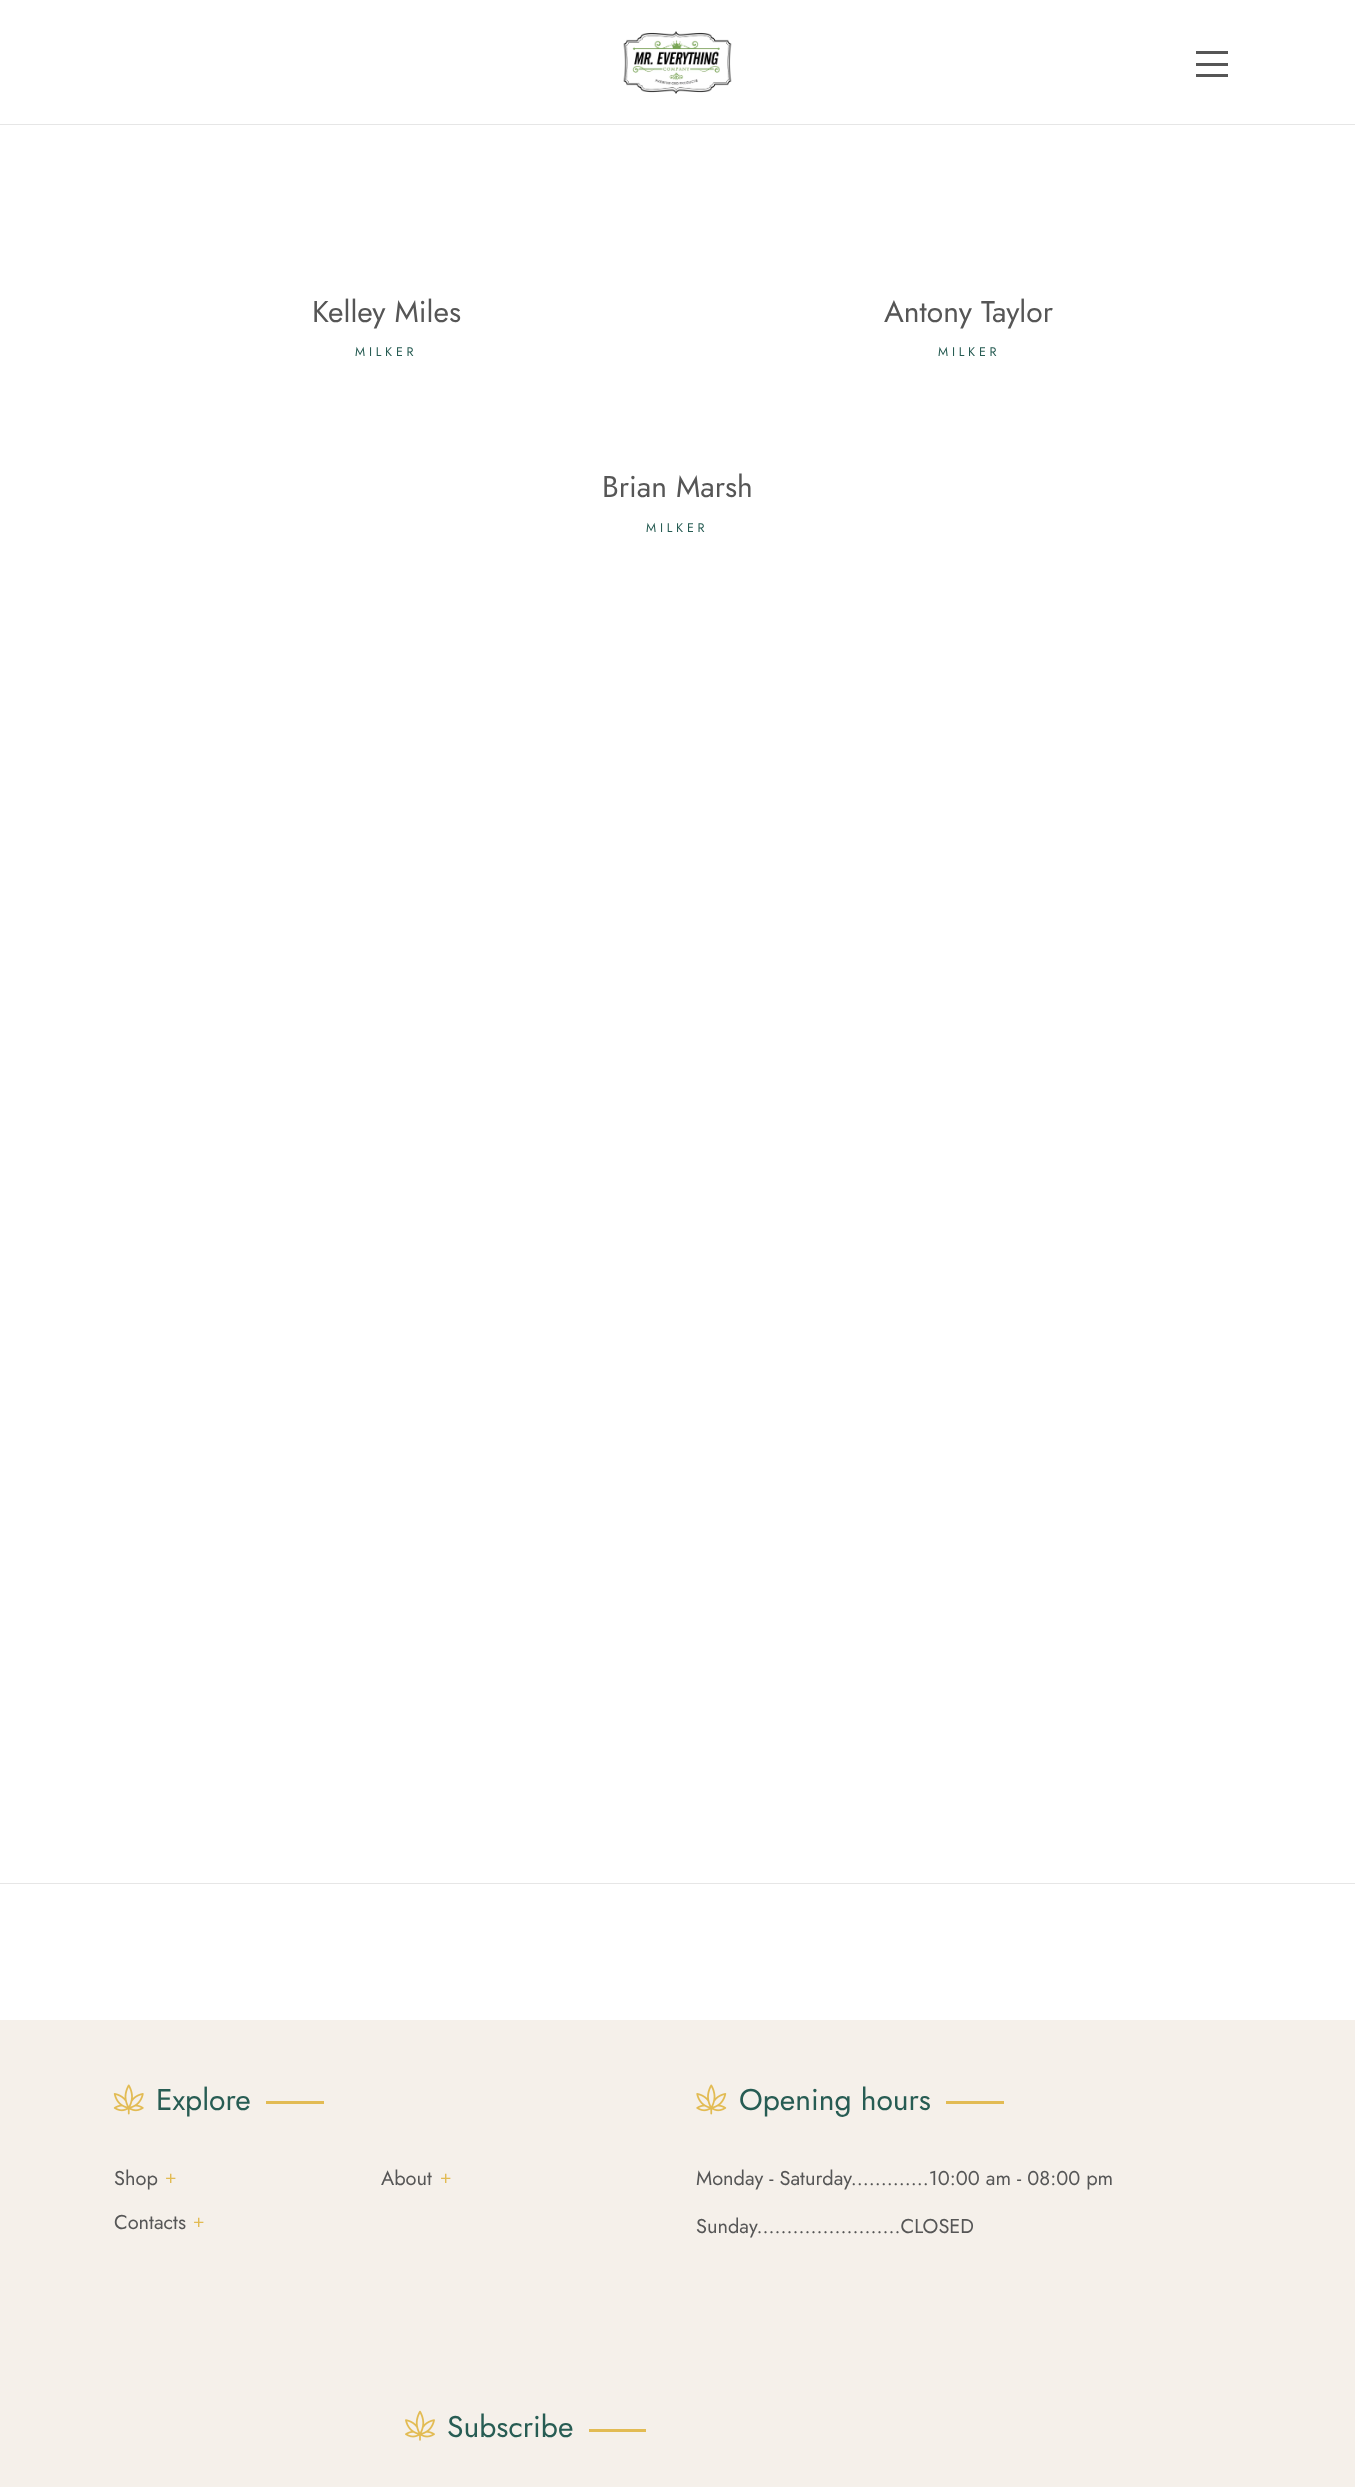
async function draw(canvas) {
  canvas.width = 1355;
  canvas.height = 2487;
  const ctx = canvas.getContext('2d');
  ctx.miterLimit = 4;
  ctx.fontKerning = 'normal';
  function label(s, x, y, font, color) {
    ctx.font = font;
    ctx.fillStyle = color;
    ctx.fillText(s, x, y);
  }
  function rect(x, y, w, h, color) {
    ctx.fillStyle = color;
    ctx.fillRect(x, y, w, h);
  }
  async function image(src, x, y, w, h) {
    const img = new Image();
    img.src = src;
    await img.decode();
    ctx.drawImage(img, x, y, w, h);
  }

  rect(0, 0, 1355, 2487, '#fff');
  await image('assets/img1.png', 623, 31, 109, 63);
  rect(1196, 51, 32, 3, '#565656');
  rect(1196, 63, 32, 3, '#565656');
  rect(1196, 74, 32, 3, '#565656');
  rect(0, 124, 1355, 1, '#e6e6e6');
  label('Kelley Miles', 312, 322, '30px Jost', '#565656');
  ctx.letterSpacing = '3.75px';
  label('MILKER', 355, 356, '12.5px Jost', '#275c53');
  ctx.letterSpacing = '0px';
  label('Antony Taylor', 884, 322, '30px Jost', '#565656');
  ctx.letterSpacing = '3.75px';
  label('MILKER', 938, 356, '12.5px Jost', '#275c53');
  ctx.letterSpacing = '0px';
  label('Brian Marsh', 602, 497, '30px Jost', '#565656');
  ctx.letterSpacing = '3.75px';
  label('MILKER', 646, 532, '12.5px Jost', '#275c53');
  rect(0, 2020, 1355, 467, '#f5f0ea');
  rect(0, 1883, 1355, 1, '#e6e6e6');
  await image('assets/img2.png', 113, 2084, 31, 31);
  ctx.letterSpacing = '0px';
  label('Explore', 156, 2110, '30px Jost', '#275c53');
  rect(266, 2101, 58, 3, '#e2bb53');
  label('Shop', 114, 2185, '20px Jost', '#565656');
  label('+', 165, 2185, 'bold 20px Liberation Serif', '#e2bb53');
  label('About', 381, 2185, '20px Jost', '#565656');
  label('+', 440, 2185, 'bold 20px Liberation Serif', '#e2bb53');
  label('Contacts', 114, 2229, '20px Jost', '#565656');
  label('+', 193, 2229, 'bold 20px Liberation Serif', '#e2bb53');
  await image('assets/img3.png', 696, 2084, 31, 31);
  label('Opening hours', 739, 2110, '30px Jost', '#275c53');
  rect(946, 2101, 58, 3, '#e2bb53');
  label('Monday - Saturday.............10:00 am - 08:00 pm', 696, 2185, '20px Jost', '#565656');
  label('Sunday........................CLOSED', 696, 2233, '20px Jost', '#565656');
  await image('assets/img4.png', 405, 2410, 30, 31);
  label('Subscribe', 447, 2437, '30px Jost', '#275c53');
  rect(589, 2429, 57, 3, '#e2bb53');
}

draw(document.querySelector('canvas'));
